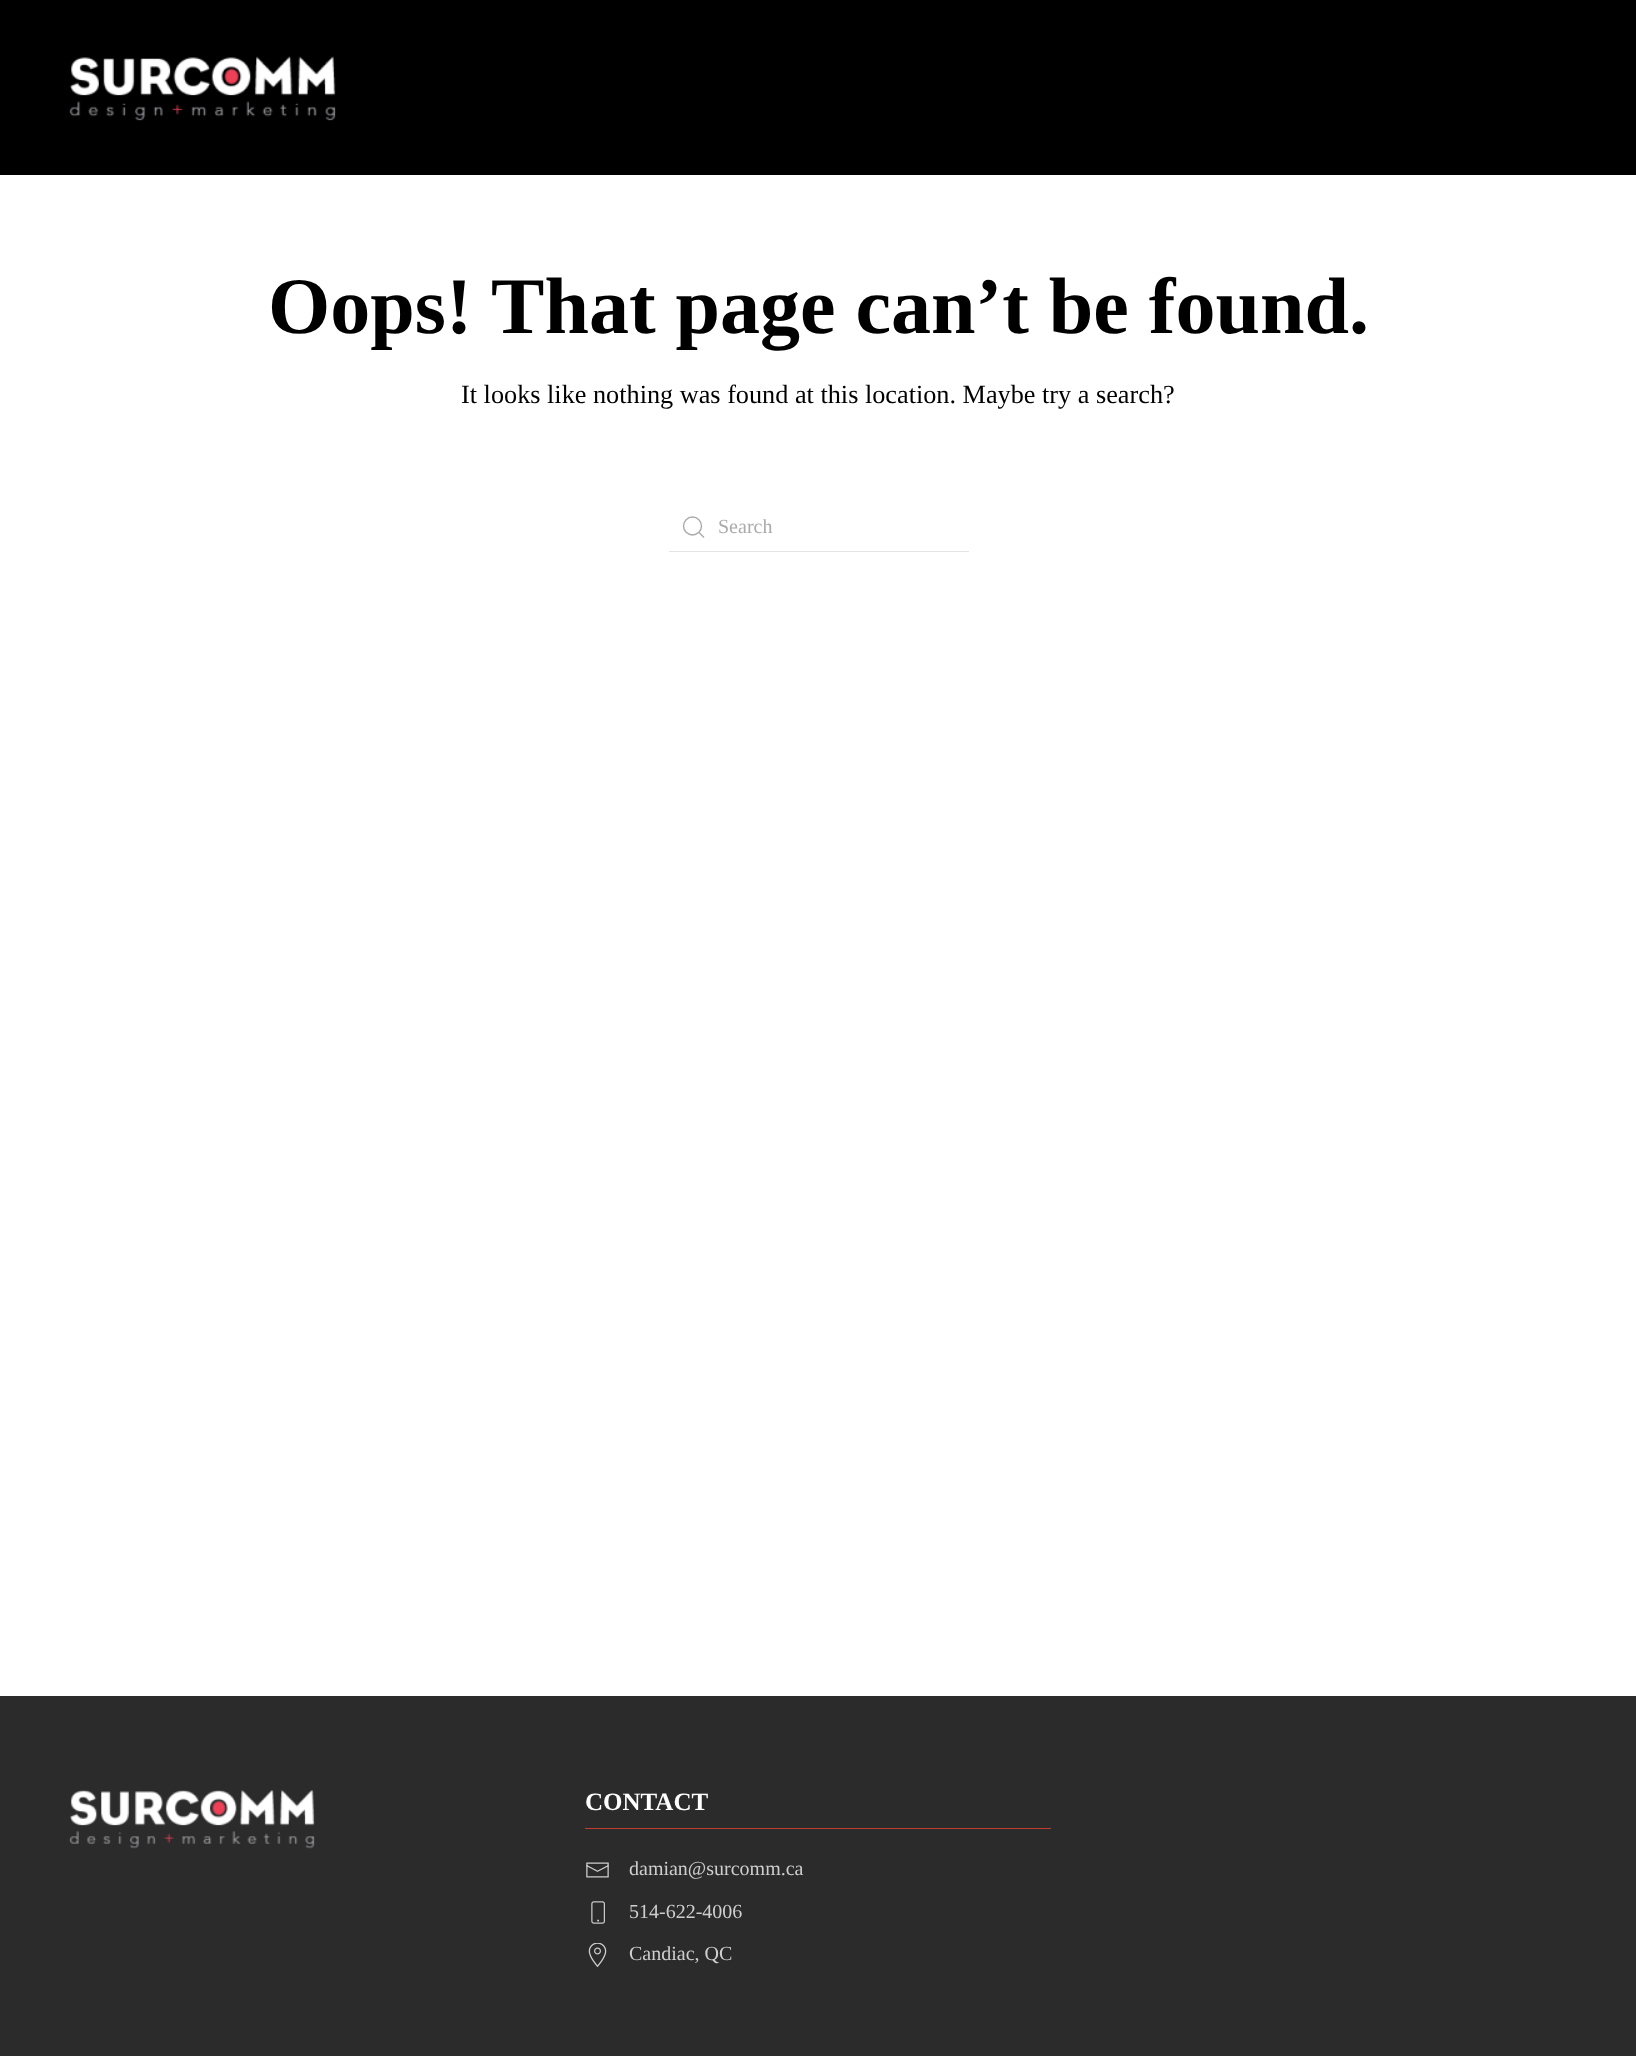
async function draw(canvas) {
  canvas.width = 1636;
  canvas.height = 2056;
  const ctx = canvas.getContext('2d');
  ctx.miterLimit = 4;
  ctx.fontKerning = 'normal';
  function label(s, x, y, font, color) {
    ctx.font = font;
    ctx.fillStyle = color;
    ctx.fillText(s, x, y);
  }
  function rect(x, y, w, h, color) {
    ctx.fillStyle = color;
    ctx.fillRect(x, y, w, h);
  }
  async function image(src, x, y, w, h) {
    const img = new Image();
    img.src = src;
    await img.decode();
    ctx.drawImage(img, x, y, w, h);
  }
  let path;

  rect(0, 0, 1636, 2056, '#fff');
  rect(0, 0, 1636, 175, '#000');
  await image('assets/img1.png', 69, 56, 267, 65);
  label('Oops! That page can’t be found.', 268, 333, 'bold 80px Liberation Serif', '#000');
  label('It looks like nothing was found at this location. Maybe try a search?', 461, 403, '26.25px Liberation Serif', '#000');
  ctx.beginPath();
  ctx.arc(692.5, 526, 9, 0, 2 * Math.PI);
  ctx.strokeStyle = '#aaa';
  ctx.lineWidth = 1.4;
  ctx.stroke();
  path = new Path2D('M699 532.5L704 537.5Z');
  ctx.stroke(path);
  rect(669, 551, 300, 1, '#e5e5e5');
  label('Search', 718, 533, '20px Liberation Serif', '#aaa');
  rect(0, 1696, 1636, 360, '#2b2b2b');
  await image('assets/img2.png', 69, 1790, 246, 59);
  rect(585, 1828, 466, 1, '#be3d2c');
  label('CONTACT', 585, 1810, 'bold 25px Liberation Serif', '#fff');
  await image('assets/img3.png', 586, 1862, 23, 16);
  label('damian@surcomm.ca', 629, 1875, '20px Liberation Serif', '#cecece');
  await image('assets/img4.png', 591, 1901, 14, 23);
  label('514-622-4006', 629, 1918, '20px Liberation Serif', '#cecece');
  await image('assets/img5.png', 588, 1943, 19, 25);
  label('Candiac, QC', 629, 1960, '20px Liberation Serif', '#cecece');
}

draw(document.querySelector('canvas'));
